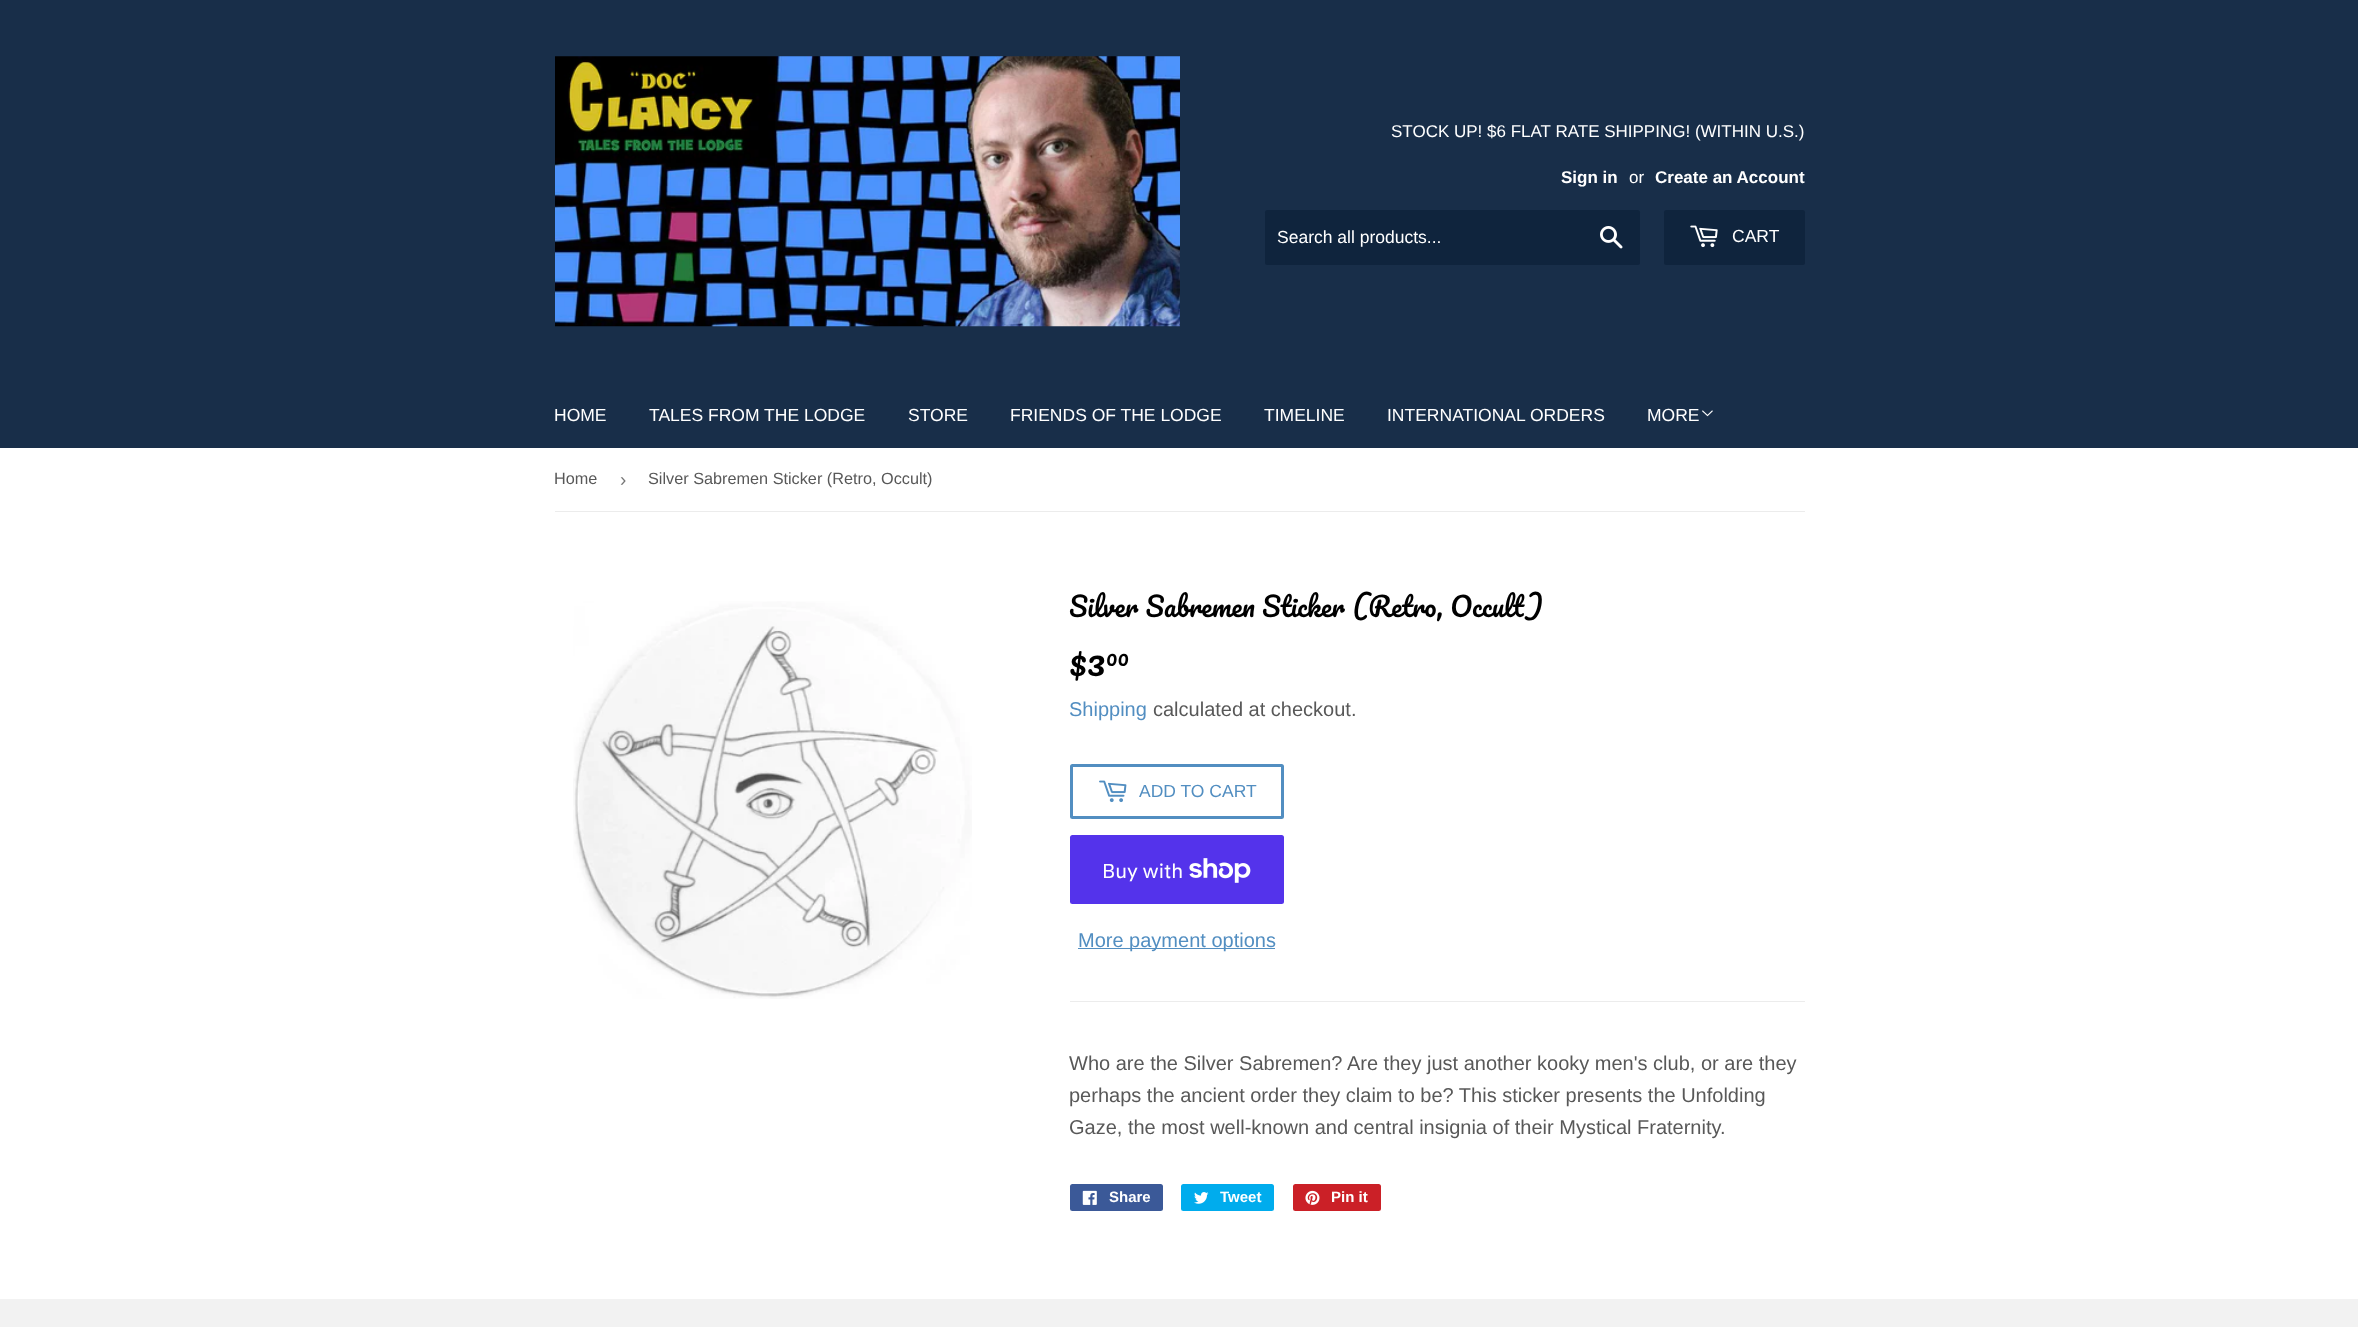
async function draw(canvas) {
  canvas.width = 2358;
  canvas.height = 1327;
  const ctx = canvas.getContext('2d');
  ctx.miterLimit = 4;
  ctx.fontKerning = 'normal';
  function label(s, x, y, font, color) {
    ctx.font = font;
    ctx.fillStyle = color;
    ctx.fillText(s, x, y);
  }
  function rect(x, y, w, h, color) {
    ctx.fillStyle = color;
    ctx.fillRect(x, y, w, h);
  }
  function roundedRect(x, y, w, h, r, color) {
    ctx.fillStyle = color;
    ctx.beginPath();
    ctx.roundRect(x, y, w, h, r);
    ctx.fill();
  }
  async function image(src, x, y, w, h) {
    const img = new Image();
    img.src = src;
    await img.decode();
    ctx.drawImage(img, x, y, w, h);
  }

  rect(0, 0, 2358, 1327, '#fff');
  rect(0, 0, 2358, 448, '#182e49');
  await image('assets/img1.png', 555, 56, 625, 271);
  label('STOCK UP! $6 FLAT RATE SHIPPING! (WITHIN U.S.)', 1391, 137, '17px Liberation Sans', '#fff');
  label('Sign in', 1561, 183, 'bold 17px Liberation Sans', '#fff');
  label('or', 1629, 183, '17px Liberation Sans', '#fff');
  label('Create an Account', 1655, 183, 'bold 17px Liberation Sans', '#fff');
  roundedRect(1265, 210, 375, 55, 2.5, '#0f243d');
  label('Search all products...', 1277, 243, '17.5px Liberation Sans', '#fff');
  await image('assets/img2.png', 1600, 226, 23, 23);
  roundedRect(1664, 210, 141, 55, 2.5, '#0f243d');
  await image('assets/img3.png', 1690, 225, 28, 23);
  label('CART', 1732, 242, '17.5px Liberation Sans', '#fff');
  label('HOME', 554, 421, '17.5px Liberation Sans', '#fff');
  label('TALES FROM THE LODGE', 649, 421, '17.5px Liberation Sans', '#fff');
  label('STORE', 908, 421, '17.5px Liberation Sans', '#fff');
  label('FRIENDS OF THE LODGE', 1010, 421, '17.5px Liberation Sans', '#fff');
  label('TIMELINE', 1264, 421, '17.5px Liberation Sans', '#fff');
  label('INTERNATIONAL ORDERS', 1387, 421, '17.5px Liberation Sans', '#fff');
  label('MORE', 1647, 421, '17.5px Liberation Sans', '#fff');
  await image('assets/img4.png', 1702, 410, 11, 7);
  rect(555, 511, 1250, 1, '#ececec');
  label('Home', 554, 484, '16.25px Liberation Sans', '#585858');
  label('›', 620, 486, '19px Liberation Sans', '#767676');
  label('Silver Sabremen Sticker (Retro, Occult)', 648, 484, '16.25px Liberation Sans', '#585858');
  await image('assets/img5.png', 573, 601, 399, 398);
  label('Silver Sabremen Sticker (Retro, Occult)', 1069, 617, '26.7px Pacifico', '#000');
  label('$3', 1069, 676, '35px Pacifico', '#000');
  label('00', 1106, 666, '21px Pacifico', '#000');
  label('Shipping', 1069, 716, '20px Liberation Sans', '#528ec1');
  label('calculated at checkout.', 1153, 716, '20px Liberation Sans', '#585858');
  ctx.beginPath();
  ctx.roundRect(1071.5, 765.5, 211, 52, 1);
  ctx.strokeStyle = '#528ec1';
  ctx.lineWidth = 3;
  ctx.stroke();
  await image('assets/img6.png', 1099, 780, 28, 23);
  label('ADD TO CART', 1139, 797, '17.5px Liberation Sans', '#528ec1');
  roundedRect(1070, 835, 214, 69, 2.5, '#5433eb');
  label('Buy with', 1102, 878, '20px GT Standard', '#fff');
  await image('assets/img7.png', 1189, 858, 62, 25);
  rect(1078, 948, 197, 1, '#528ec1');
  label('More payment options', 1078, 947, '20px Liberation Sans', '#528ec1');
  rect(1070, 1001, 735, 1, '#ececec');
  label('Who are the Silver Sabremen? Are they just another kooky men\'s club, or are they', 1069, 1070, '20px Liberation Sans', '#585858');
  label('perhaps the ancient order they claim to be? This sticker presents the Unfolding', 1069, 1102, '20px Liberation Sans', '#585858');
  label('Gaze, the most well-known and central insignia of their Mystical Fraternity.', 1069, 1134, '20px Liberation Sans', '#585858');
  roundedRect(1070, 1184, 93, 27, 2.5, '#3b5998');
  await image('assets/img8.png', 1082, 1190, 15, 15);
  label('Share', 1109, 1202, 'bold 15px Liberation Sans', '#fff');
  roundedRect(1181, 1184, 93, 27, 2.5, '#00aced');
  await image('assets/img9.png', 1194, 1192, 15, 12);
  label('Tweet', 1220, 1202, 'bold 15px Liberation Sans', '#fff');
  roundedRect(1293, 1184, 88, 27, 2.5, '#cb2027');
  await image('assets/img10.png', 1305, 1190, 15, 15);
  label('Pin it', 1331, 1202, 'bold 15px Liberation Sans', '#fff');
  rect(0, 1299, 2358, 28, '#f2f2f2');
}

draw(document.querySelector('canvas'));
